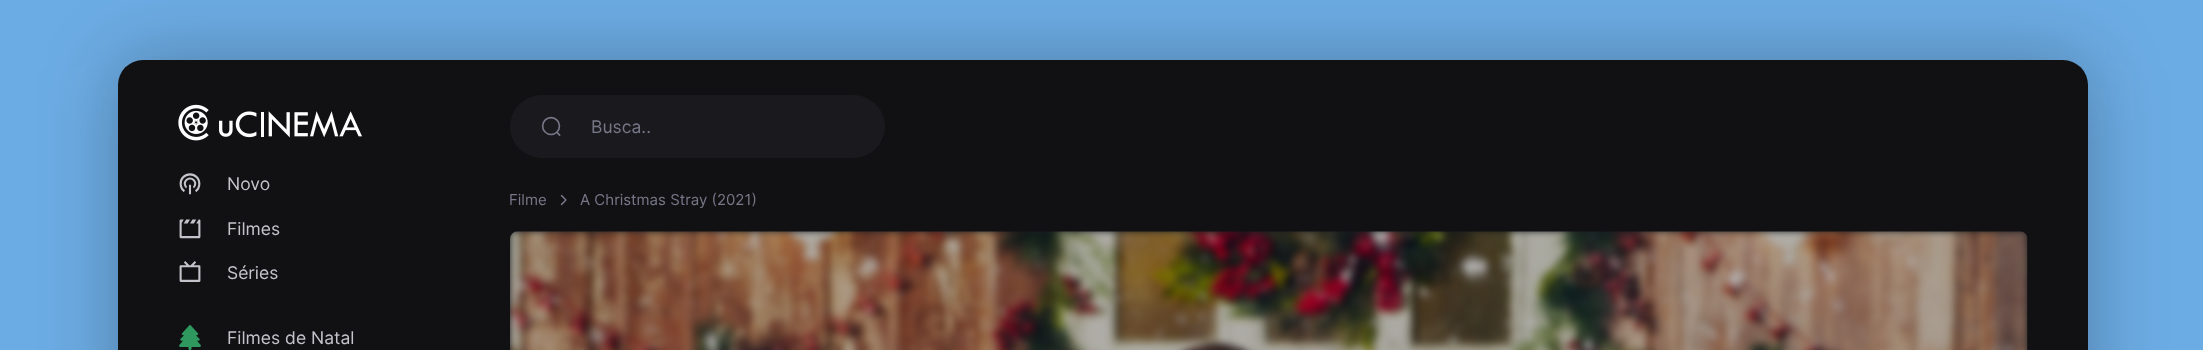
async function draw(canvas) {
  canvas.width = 2203;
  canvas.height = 350;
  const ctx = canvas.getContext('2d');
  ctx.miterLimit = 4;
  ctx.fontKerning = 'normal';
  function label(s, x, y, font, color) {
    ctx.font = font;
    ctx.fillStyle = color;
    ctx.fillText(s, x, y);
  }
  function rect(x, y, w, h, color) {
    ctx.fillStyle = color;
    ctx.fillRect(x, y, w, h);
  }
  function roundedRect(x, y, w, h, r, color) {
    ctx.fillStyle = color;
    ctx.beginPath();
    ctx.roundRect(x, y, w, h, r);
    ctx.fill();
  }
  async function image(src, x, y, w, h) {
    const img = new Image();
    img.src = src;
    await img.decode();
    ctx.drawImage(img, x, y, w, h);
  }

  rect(0, 0, 2203, 350, '#6cace4');
  ctx.fillStyle = '#1111134d';
  ctx.filter = 'blur(37.5px)';
  ctx.beginPath();
  ctx.roundRect(118, 60, 1970, 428, 25);
  ctx.fill();
  ctx.filter = 'none';
  roundedRect(118, 60, 1970, 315, 25, '#111113');
  roundedRect(510, 95, 375, 63, 31.5, '#1a1a1e');
  await image('assets/img1.png', 541, 116, 20, 21);
  label('Busca..', 591, 133, '17.5px Inter', '#778');
  label('Filme', 509, 205, '15px Inter', '#778');
  await image('assets/img2.png', 560, 194, 7, 12);
  label('A Christmas Stray (2021)', 580, 205, '15px Inter', '#778');
  await image('assets/img3.png', 510, 231, 1518, 119);
  await image('assets/img4.png', 178, 104, 184, 37);
  await image('assets/img5.png', 179, 173, 22, 22);
  label('Novo', 227, 190, '17.5px Inter', '#c3c3cb');
  await image('assets/img6.png', 179, 219, 22, 20);
  label('Filmes', 227, 235, '17.5px Inter', '#c3c3cb');
  await image('assets/img7.png', 179, 261, 22, 21);
  label('Séries', 227, 279, '17.5px Inter', '#c3c3cb');
  await image('assets/img8.png', 179, 325, 22, 25);
  label('Filmes de Natal', 227, 344, '17.5px Inter', '#c3c3cb');
}

draw(document.querySelector('canvas'));
